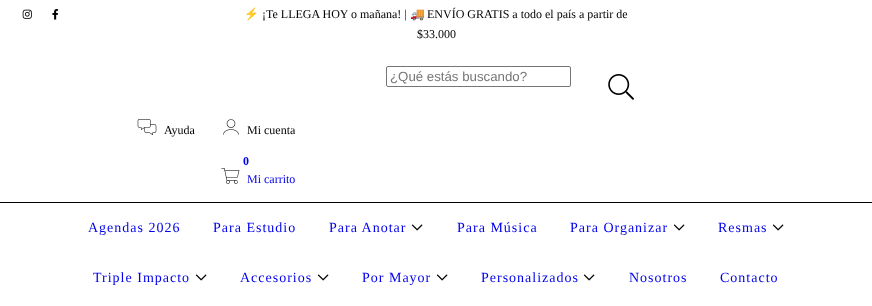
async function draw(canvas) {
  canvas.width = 872;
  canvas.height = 306;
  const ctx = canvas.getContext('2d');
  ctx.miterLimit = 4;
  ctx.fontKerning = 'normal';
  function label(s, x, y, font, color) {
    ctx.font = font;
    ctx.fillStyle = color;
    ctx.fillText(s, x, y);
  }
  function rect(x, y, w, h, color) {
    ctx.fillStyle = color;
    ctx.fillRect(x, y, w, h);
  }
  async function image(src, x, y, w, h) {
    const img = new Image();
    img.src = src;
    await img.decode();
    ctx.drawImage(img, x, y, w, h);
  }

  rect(0, 0, 872, 306, '#fff');
  await image('assets/img1.png', 22, 9, 10, 10);
  await image('assets/img2.png', 52, 9, 7, 11);
  label('⚡', 244, 18, '12px Noto Color Emoji', '#000');
  label('¡Te LLEGA HOY o mañana! |', 262, 18, '12px Liberation Serif', '#000');
  label('🚚', 410, 18, '12px Noto Color Emoji', '#000');
  label('ENVÍO GRATIS a todo el país a partir de', 427, 18, '12px Liberation Serif', '#000');
  label('$33.000', 417, 38, '12px Liberation Serif', '#000');
  ctx.beginPath();
  ctx.roundRect(386.5, 66.5, 184, 20, 1.5);
  ctx.strokeStyle = '#767676';
  ctx.stroke();
  label('¿Qué estás buscando?', 390, 81, '13.25px Liberation Sans', '#757575');
  await image('assets/img3.png', 608, 74, 26, 26);
  await image('assets/img4.png', 137, 119, 20, 16);
  label('Ayuda', 164, 134, '12px Liberation Serif', '#000');
  await image('assets/img5.png', 223, 119, 16, 16);
  label('Mi cuenta', 247, 134, '12px Liberation Serif', '#000');
  label('0', 243, 165, 'bold 12px Liberation Serif', '#00e');
  await image('assets/img6.png', 221, 168, 19, 16);
  label('Mi carrito', 247, 183, '12px Liberation Serif', '#00e');
  rect(0, 202, 872, 1, '#000');
  ctx.letterSpacing = '1px';
  label('Agendas 2026', 88, 232, '14px Liberation Serif', '#00e');
  label('Para Estudio', 213, 232, '14px Liberation Serif', '#00e');
  label('Para Anotar', 329, 232, '14px Liberation Serif', '#00e');
  await image('assets/img7.png', 411, 224, 12, 7);
  label('Para Música', 457, 232, '14px Liberation Serif', '#00e');
  label('Para Organizar', 570, 232, '14px Liberation Serif', '#00e');
  await image('assets/img7.png', 673, 224, 12, 7);
  label('Resmas', 718, 232, '14px Liberation Serif', '#00e');
  await image('assets/img7.png', 772, 224, 12, 7);
  label('Triple Impacto', 93, 282, '14px Liberation Serif', '#00e');
  await image('assets/img7.png', 195, 274, 12, 7);
  label('Accesorios', 240, 282, '14px Liberation Serif', '#00e');
  await image('assets/img7.png', 317, 274, 12, 7);
  label('Por Mayor', 362, 282, '14px Liberation Serif', '#00e');
  await image('assets/img7.png', 436, 274, 12, 7);
  label('Personalizados', 481, 282, '14px Liberation Serif', '#00e');
  await image('assets/img7.png', 583, 274, 12, 7);
  label('Nosotros', 629, 282, '14px Liberation Serif', '#00e');
  label('Contacto', 720, 282, '14px Liberation Serif', '#00e');
}

draw(document.querySelector('canvas'));
